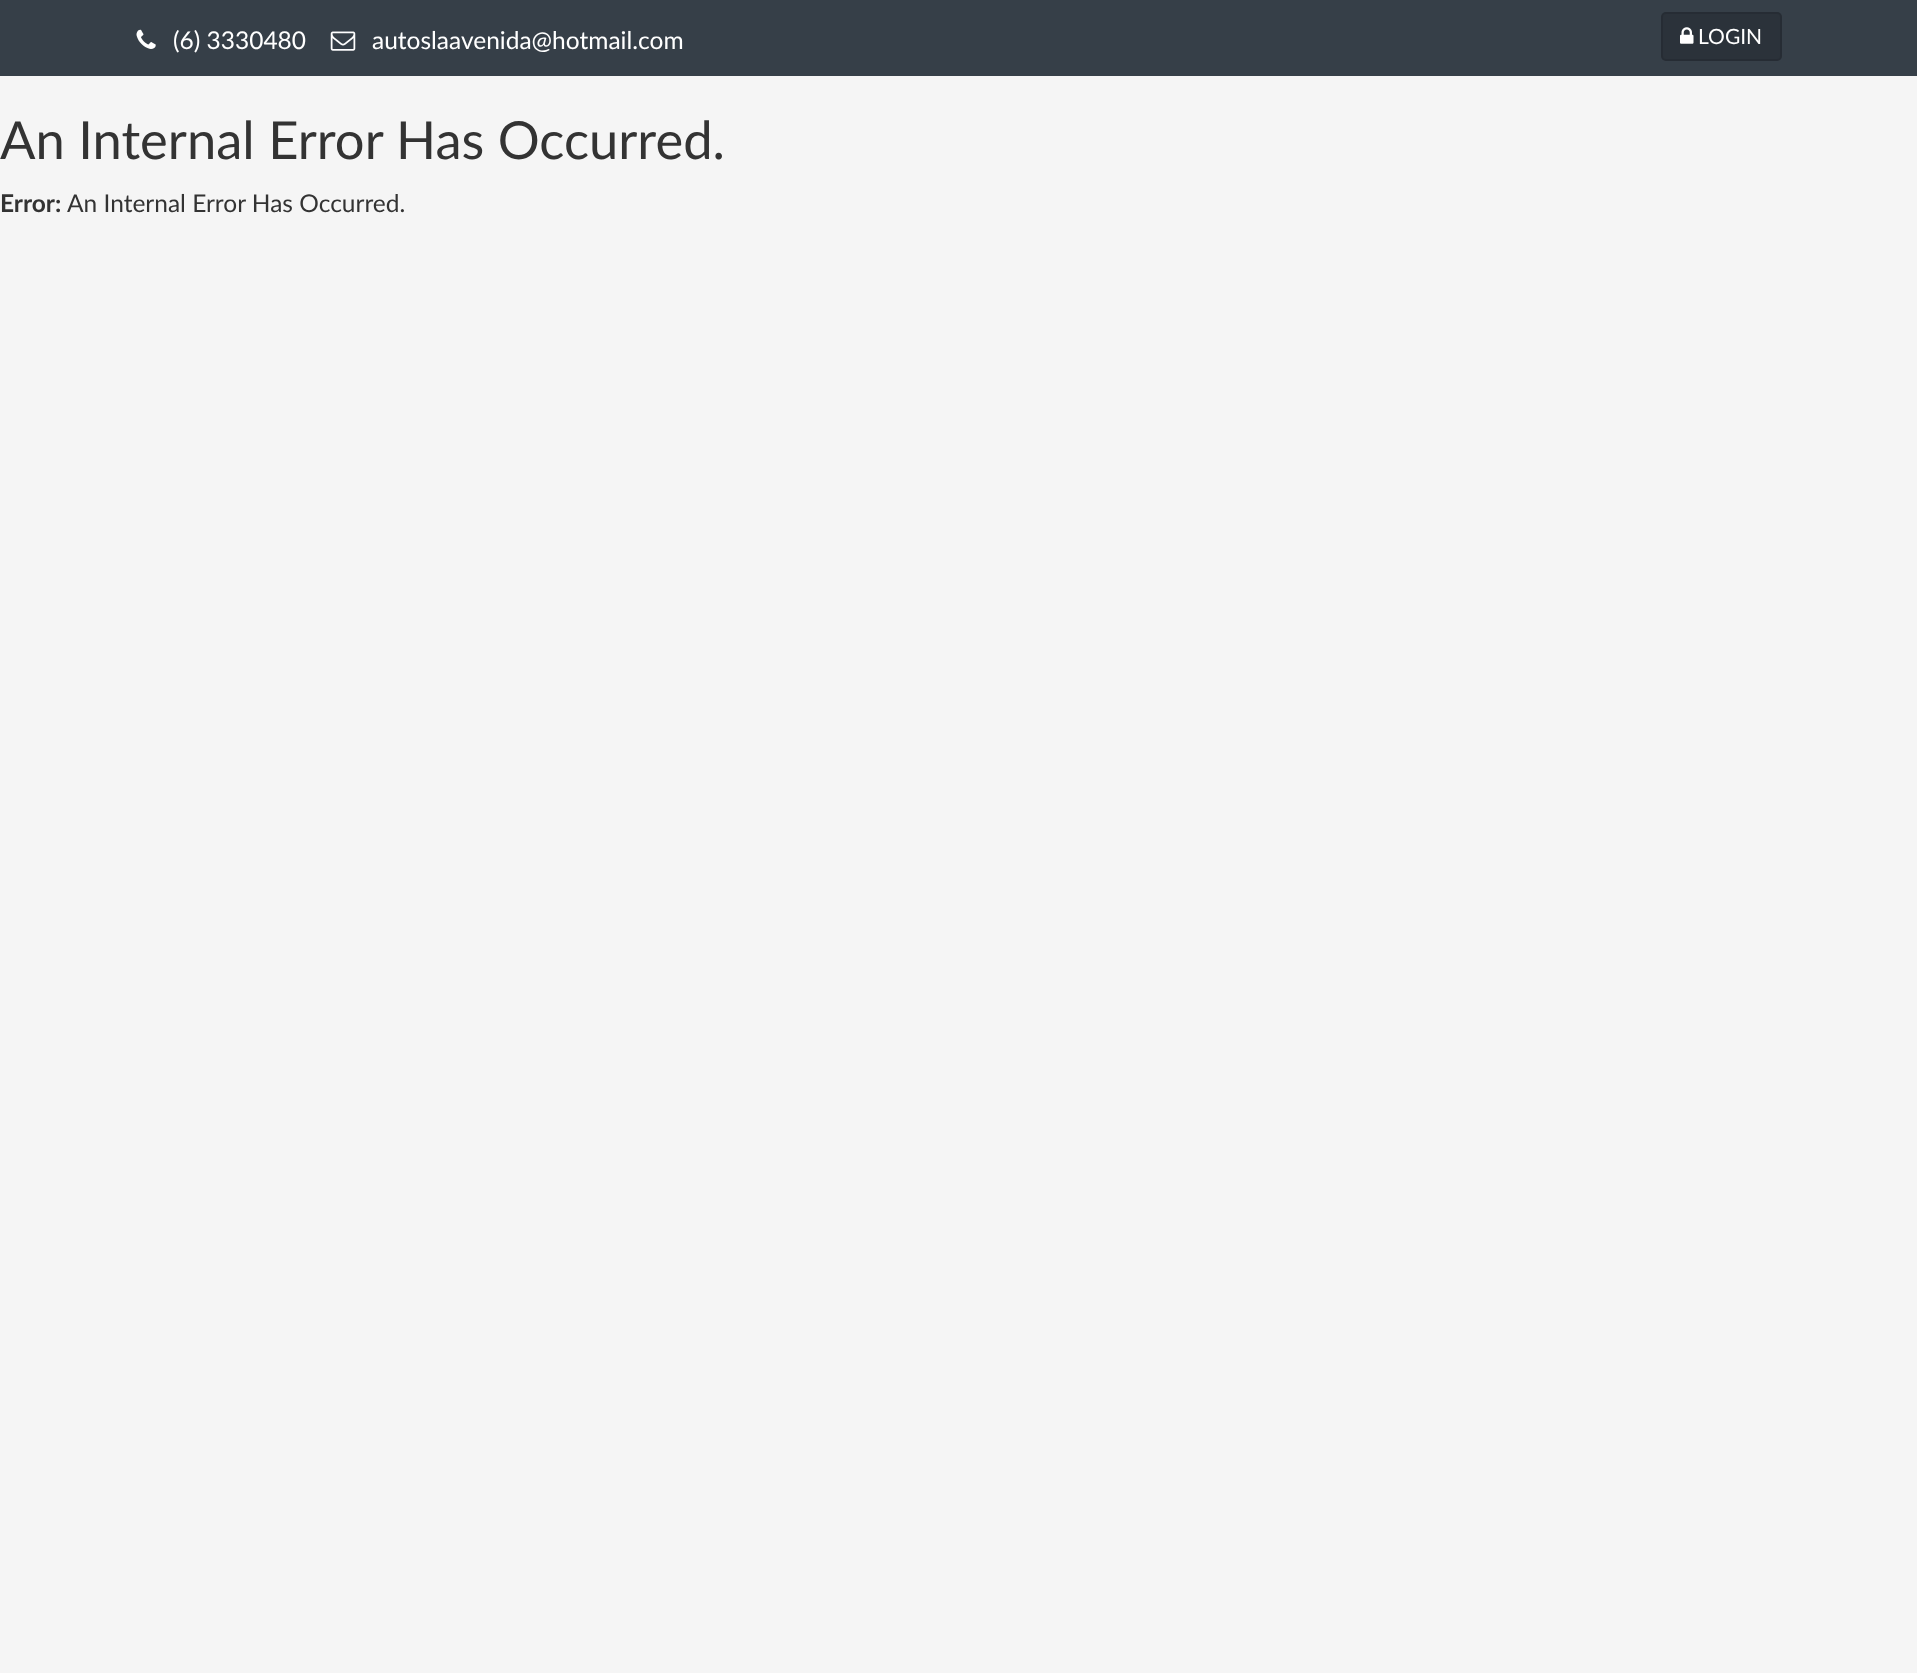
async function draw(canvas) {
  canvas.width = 1917;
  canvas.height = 1673;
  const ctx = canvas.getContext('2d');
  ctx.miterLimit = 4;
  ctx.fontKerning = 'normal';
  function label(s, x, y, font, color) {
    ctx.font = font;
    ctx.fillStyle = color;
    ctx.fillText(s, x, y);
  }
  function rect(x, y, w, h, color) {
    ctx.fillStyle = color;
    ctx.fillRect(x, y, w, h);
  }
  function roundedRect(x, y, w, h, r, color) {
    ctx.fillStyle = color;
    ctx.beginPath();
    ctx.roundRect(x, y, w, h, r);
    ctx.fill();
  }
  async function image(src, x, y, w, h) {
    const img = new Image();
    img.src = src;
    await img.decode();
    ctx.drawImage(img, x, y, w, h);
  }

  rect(0, 0, 1917, 1673, '#f5f5f5');
  rect(0, 0, 1917, 76, '#363f48');
  await image('assets/img1.png', 136, 29, 20, 20);
  label('(6) 3330480', 173, 49, '24.5px Lato', '#fff');
  await image('assets/img2.png', 330, 31, 26, 20);
  label('autoslaavenida@hotmail.com', 372, 49, '24.5px Lato', '#fff');
  roundedRect(1661, 12, 121, 49, 5, '#2b323a');
  ctx.beginPath();
  ctx.roundRect(1662, 13, 119, 47, 4);
  ctx.strokeStyle = '#0000001a';
  ctx.lineWidth = 2;
  ctx.stroke();
  await image('assets/img3.png', 1680, 27, 14, 17);
  label('LOGIN', 1698, 44, '21px Lato', '#fff');
  label('An Internal Error Has Occurred.', 0, 159, '52.5px Lato', '#333');
  label('Error:', 0, 212, 'bold 24.5px Lato', '#333');
  label('An Internal Error Has Occurred.', 67, 212, '24.5px Lato', '#333');
}

draw(document.querySelector('canvas'));
